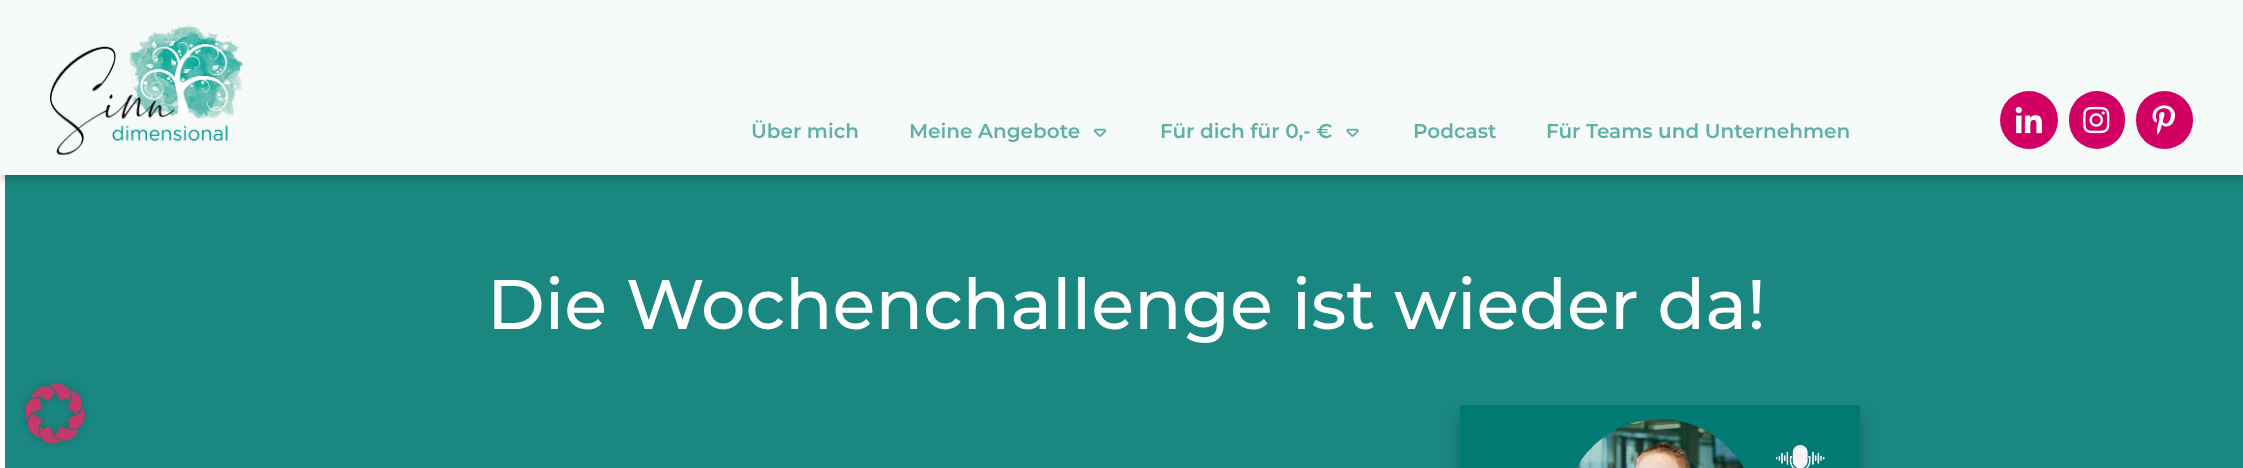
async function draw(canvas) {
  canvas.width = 2243;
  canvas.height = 468;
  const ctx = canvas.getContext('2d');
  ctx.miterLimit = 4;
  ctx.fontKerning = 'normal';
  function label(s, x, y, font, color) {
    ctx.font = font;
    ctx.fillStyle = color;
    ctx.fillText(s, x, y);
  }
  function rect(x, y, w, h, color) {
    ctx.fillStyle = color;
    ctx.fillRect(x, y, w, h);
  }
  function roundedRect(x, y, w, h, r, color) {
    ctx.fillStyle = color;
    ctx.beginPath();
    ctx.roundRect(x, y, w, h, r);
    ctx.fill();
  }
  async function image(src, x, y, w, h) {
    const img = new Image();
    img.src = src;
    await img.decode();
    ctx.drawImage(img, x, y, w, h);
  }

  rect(0, 0, 2243, 468, '#fff');
  rect(5, 175, 2238, 293, '#1a8881');
  ctx.fillStyle = '#00000026';
  ctx.filter = 'blur(3px)';
  ctx.beginPath();
  ctx.rect(0, 6, 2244, 175);
  ctx.fill();
  ctx.filter = 'none';
  rect(0, 0, 2243, 175, '#f6fbfa');
  await image('assets/img1.png', 50, 24, 194, 131);
  label('Über mich', 751, 138, '600 20px Montserrat', '#5fb1a6');
  label('Meine Angebote', 909, 138, '600 20px Montserrat', '#5fb1a6');
  await image('assets/img2.png', 1093, 128, 14, 9);
  label('Für dich für 0,- €', 1160, 138, '600 20px Montserrat', '#5fb1a6');
  await image('assets/img3.png', 1346, 128, 13, 9);
  label('Podcast', 1413, 138, '600 20px Montserrat', '#5fb1a6');
  label('Für Teams und Unternehmen', 1546, 138, '600 20px Montserrat', '#5fb1a6');
  ctx.fillStyle = '#d10062';
  ctx.beginPath();
  ctx.arc(2029, 120, 29, 0, 2 * Math.PI);
  ctx.fill();
  await image('assets/img4.png', 2015, 106, 27, 28);
  roundedRect(2069, 91, 56, 58, 28, '#d10062');
  await image('assets/img5.png', 2083, 106, 27, 28);
  roundedRect(2136, 91, 57, 58, 28.5, '#d10062');
  await image('assets/img6.png', 2152, 105, 23, 30);
  label('Die Wochenchallenge ist wieder da!', 487, 329, '500 70px Montserrat', '#fff');
  ctx.fillStyle = '#00000040';
  ctx.filter = 'blur(7.5px)';
  ctx.beginPath();
  ctx.rect(1460, 415, 400, 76);
  ctx.fill();
  ctx.filter = 'none';
  await image('assets/img7.png', 1460, 405, 400, 63);
  await image('assets/img8.png', 21, 380, 68, 68);
}

draw(document.querySelector('canvas'));
